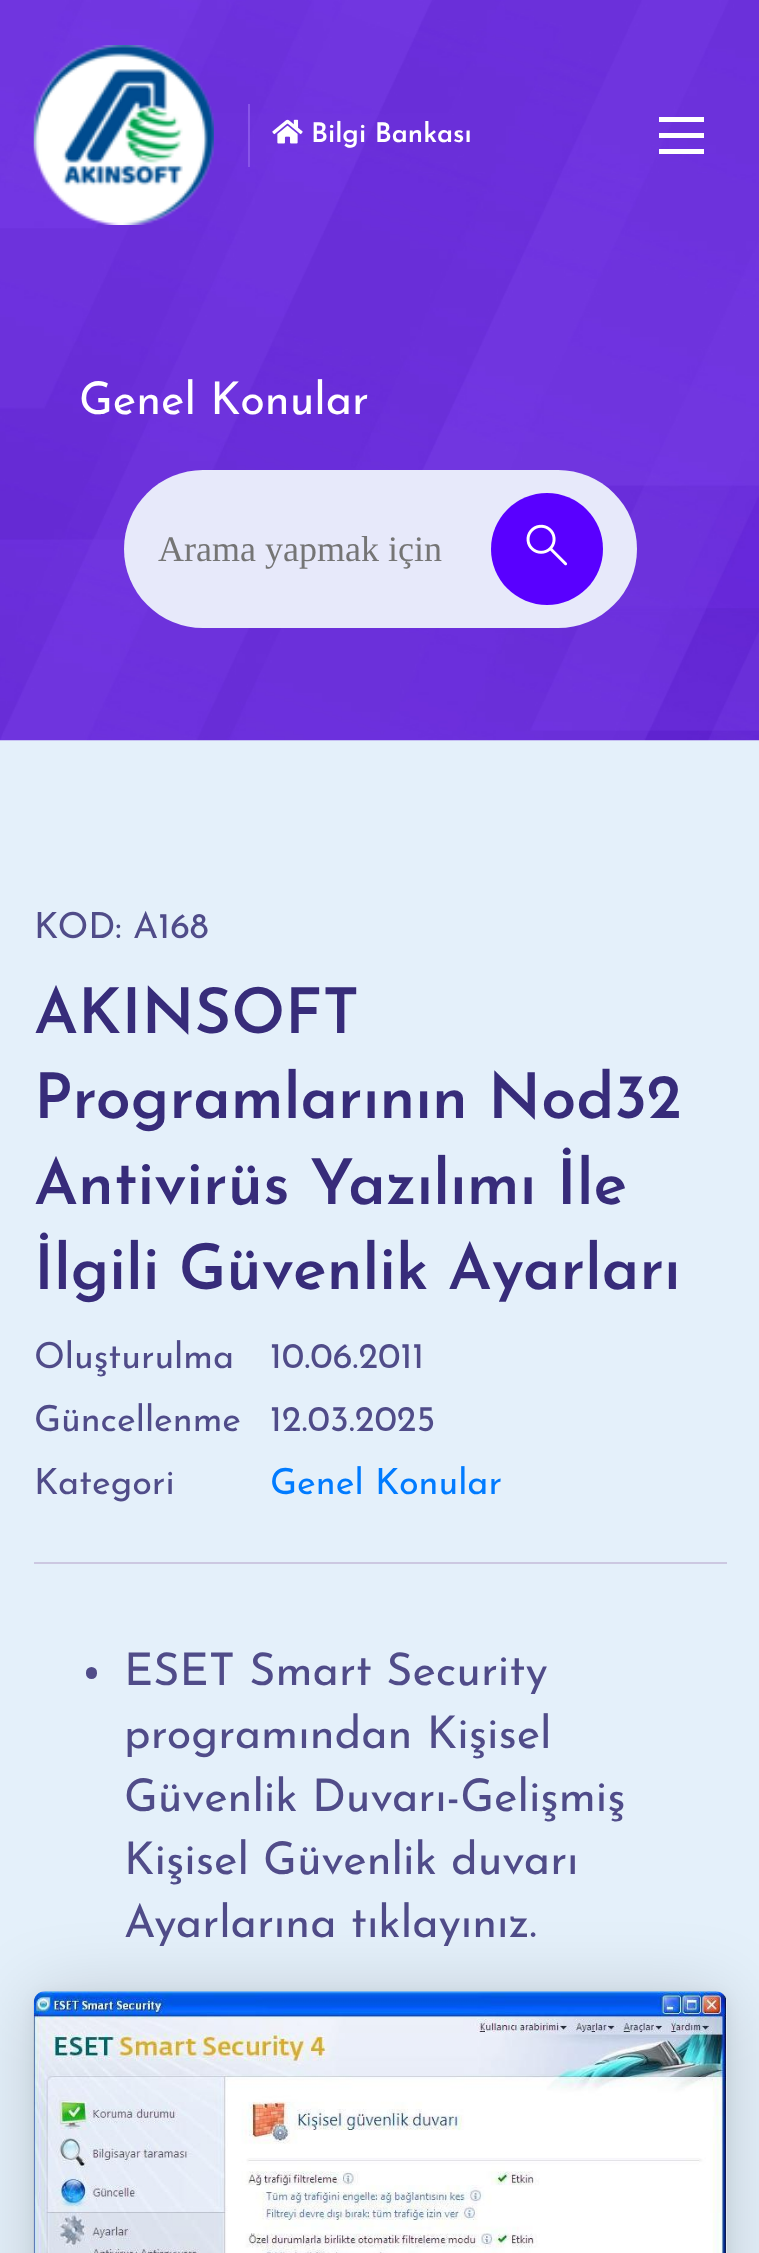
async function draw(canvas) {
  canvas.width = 759;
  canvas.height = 2253;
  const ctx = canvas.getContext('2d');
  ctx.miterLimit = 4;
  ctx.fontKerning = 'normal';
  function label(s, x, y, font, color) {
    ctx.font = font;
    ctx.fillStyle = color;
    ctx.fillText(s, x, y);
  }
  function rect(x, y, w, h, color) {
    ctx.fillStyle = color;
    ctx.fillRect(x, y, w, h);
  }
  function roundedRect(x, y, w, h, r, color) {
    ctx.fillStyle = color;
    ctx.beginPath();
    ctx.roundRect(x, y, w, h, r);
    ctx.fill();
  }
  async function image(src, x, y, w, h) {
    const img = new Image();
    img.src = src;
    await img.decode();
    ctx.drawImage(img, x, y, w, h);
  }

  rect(0, 0, 759, 2253, '#e4f0fa');
  await image('assets/img3.png', 0, 0, 759, 741);
  await image('assets/img1.png', 33, 45, 181, 180);
  rect(248, 104, 2, 63, '#8854e9');
  await image('assets/img2.png', 272, 119, 31, 25);
  label('Bilgi Bankası', 311, 142, '600 27px Josefin Sans', '#fff');
  rect(659, 117, 45, 5, '#fff');
  rect(659, 133, 45, 5, '#fff');
  rect(659, 149, 45, 5, '#fff');
  label('Genel Konular', 79, 414, '45px Josefin Sans', '#fff');
  roundedRect(124, 470, 513, 158, 79, '#e7e9fa');
  label('Arama yapmak için', 158, 561, '36px Liberation Serif', '#757575');
  ctx.fillStyle = '#5900ff';
  ctx.beginPath();
  ctx.arc(547, 549, 56, 0, 2 * Math.PI);
  ctx.fill();
  await image('assets/img4.png', 526, 524, 42, 42);
  rect(34, 1562, 693, 2, '#ccc8e1');
  label('KOD: A168', 34, 938, '36px Josefin Sans', '#504c89');
  label('AKINSOFT', 34, 1033, '600 63px Josefin Sans', '#372c7a');
  label('Programlarının Nod32', 34, 1118, '600 63px Josefin Sans', '#372c7a');
  label('Antivirüs Yazılımı İle', 34, 1204, '600 63px Josefin Sans', '#372c7a');
  ctx.wordSpacing = '-1px';
  label('İlgili Güvenlik Ayarları', 34, 1289, '600 63px Josefin Sans', '#372c7a');
  ctx.wordSpacing = '0px';
  label('Oluşturulma', 34, 1368, '36px Josefin Sans', '#504c89');
  label('10.06.2011', 270, 1368, '36px Josefin Sans', '#504c89');
  label('Güncellenme', 34, 1431, '36px Josefin Sans', '#504c89');
  label('12.03.2025', 270, 1431, '36px Josefin Sans', '#504c89');
  label('Kategori', 34, 1494, '36px Josefin Sans', '#504c89');
  label('Genel Konular', 270, 1494, '36px Josefin Sans', '#007bff');
  roundedRect(86, 1667, 11, 12, 5.5, '#504c89');
  label('ESET Smart Security', 124, 1685, '45px Josefin Sans', '#504c89');
  label('programından Kişisel', 124, 1748, '45px Josefin Sans', '#504c89');
  label('Güvenlik Duvarı-Gelişmiş', 124, 1811, '45px Josefin Sans', '#504c89');
  label('Kişisel Güvenlik duvarı', 124, 1874, '45px Josefin Sans', '#504c89');
  label('Ayarlarına tıklayınız.', 124, 1937, '45px Josefin Sans', '#504c89');
  ctx.fillStyle = '#00000029';
  ctx.filter = 'blur(36px)';
  ctx.beginPath();
  ctx.roundRect(34, 1996, 693, 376, 11);
  ctx.fill();
  ctx.filter = 'none';
  ctx.fillStyle = '#0000000f';
  ctx.filter = 'blur(7px)';
  ctx.beginPath();
  ctx.roundRect(34, 1994, 693, 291, 11);
  ctx.fill();
  ctx.filter = 'none';
  await image('assets/img5.png', 33, 1991, 694, 262);
}

draw(document.querySelector('canvas'));
